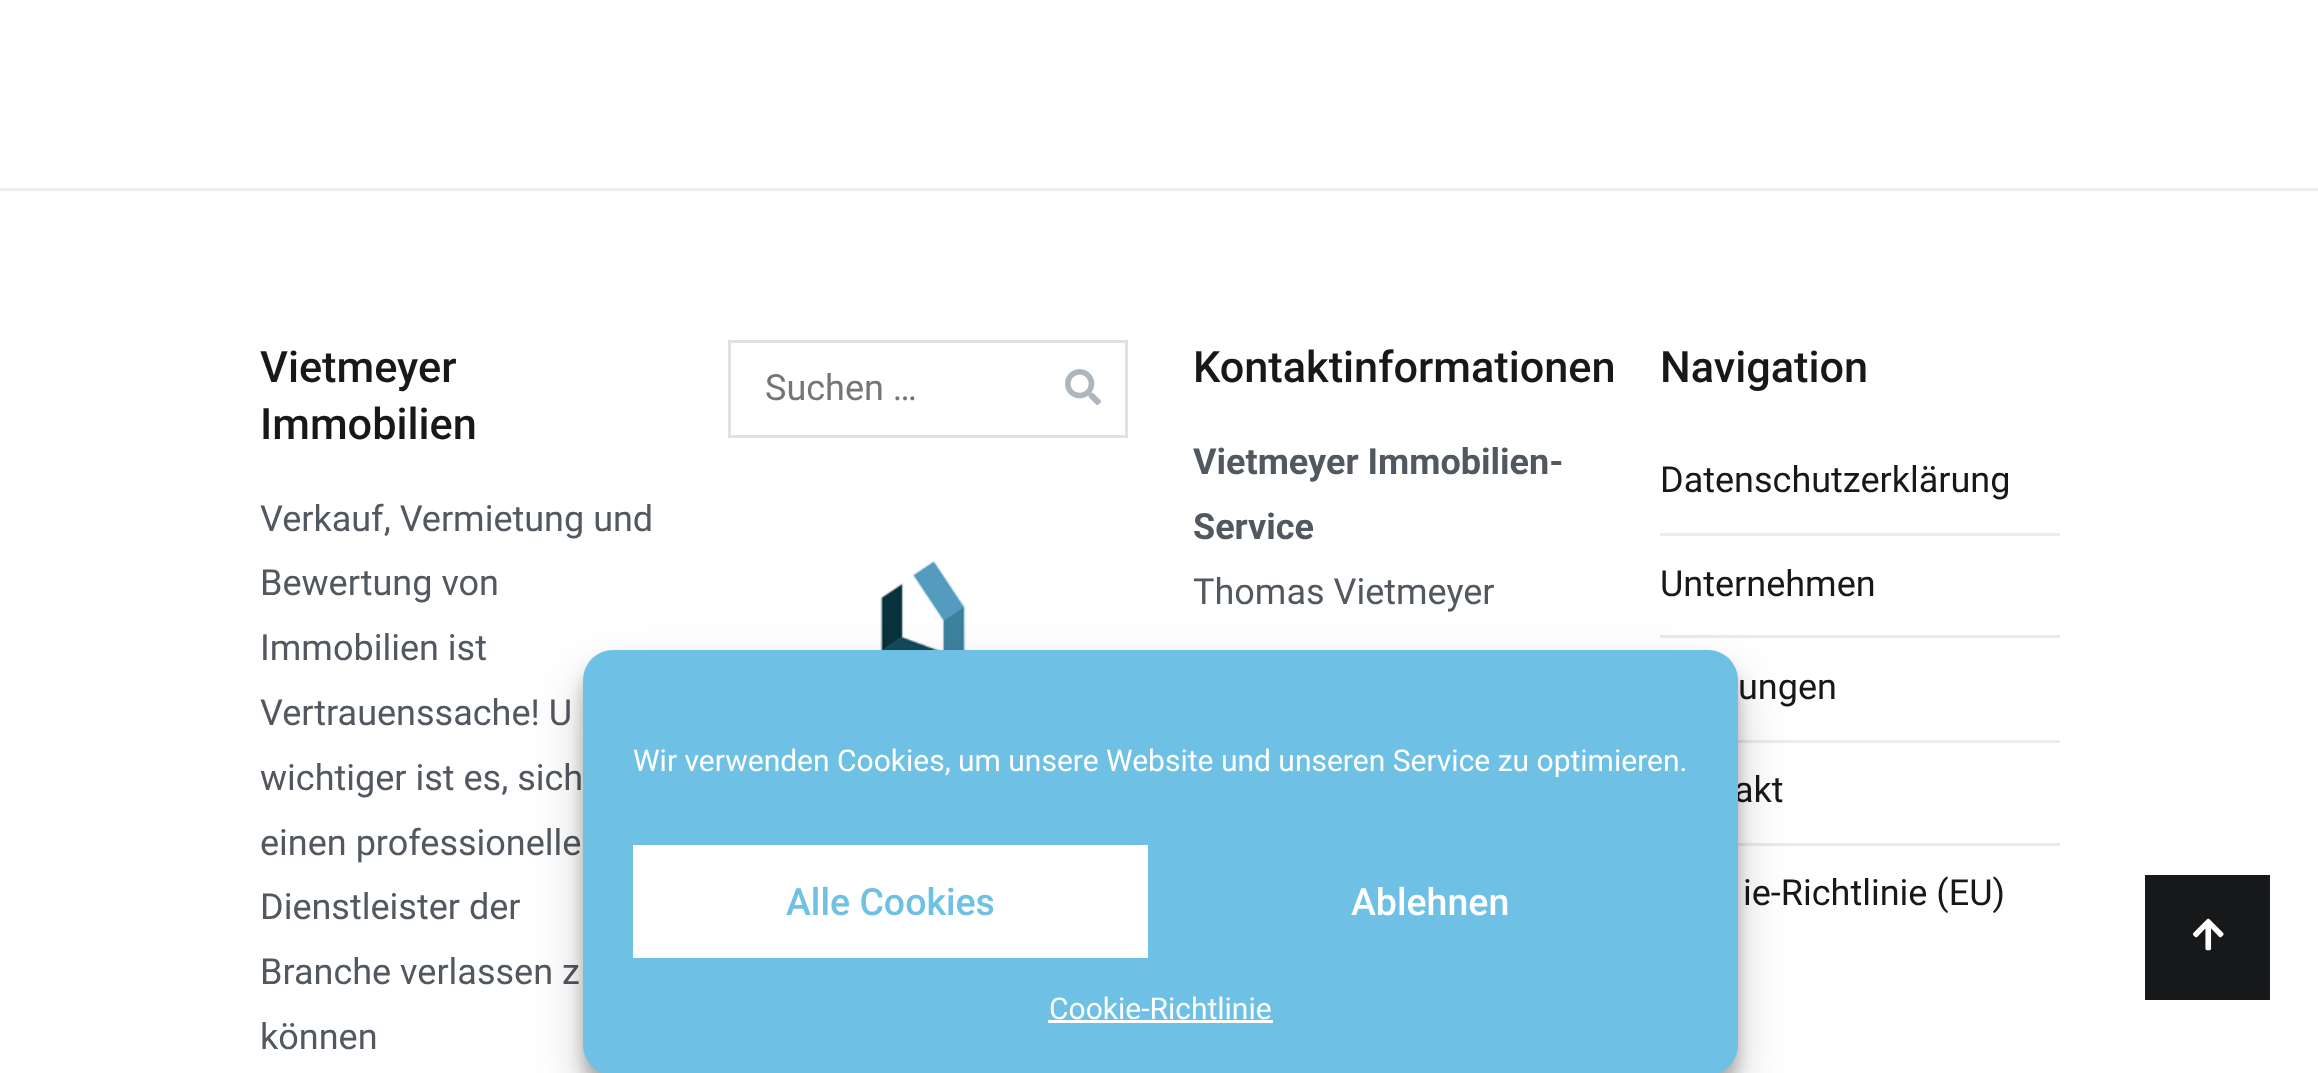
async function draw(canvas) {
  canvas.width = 2318;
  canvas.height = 1073;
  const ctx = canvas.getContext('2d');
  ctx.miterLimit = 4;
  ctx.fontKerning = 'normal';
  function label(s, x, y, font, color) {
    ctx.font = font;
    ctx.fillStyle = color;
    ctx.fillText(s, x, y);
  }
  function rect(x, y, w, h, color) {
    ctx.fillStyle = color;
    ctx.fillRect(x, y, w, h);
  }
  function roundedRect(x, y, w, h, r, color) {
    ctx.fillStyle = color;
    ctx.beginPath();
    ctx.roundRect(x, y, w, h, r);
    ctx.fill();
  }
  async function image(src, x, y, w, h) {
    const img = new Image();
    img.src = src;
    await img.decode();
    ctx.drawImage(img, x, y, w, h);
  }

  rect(0, 0, 2318, 1073, '#fff');
  rect(0, 188, 2318, 3, '#e9ecef');
  label('Vietmeyer', 260, 382, '500 43.25px Roboto', '#16181a');
  label('Immobilien', 260, 439, '500 43.25px Roboto', '#16181a');
  label('Verkauf, Vermietung und', 260, 531, '36px Roboto', '#51585f');
  label('Bewertung von', 260, 595, '36px Roboto', '#51585f');
  label('Immobilien ist', 260, 660, '36px Roboto', '#51585f');
  label('Vertrauenssache! U', 260, 725, '36px Roboto', '#51585f');
  label('wichtiger ist es, sich', 260, 790, '36px Roboto', '#51585f');
  label('einen professionelle', 260, 855, '36px Roboto', '#51585f');
  label('Dienstleister der', 260, 919, '36px Roboto', '#51585f');
  label('Branche verlassen z', 260, 984, '36px Roboto', '#51585f');
  label('können', 260, 1049, '36px Roboto', '#51585f');
  ctx.strokeStyle = '#dee2e6';
  ctx.lineWidth = 3;
  ctx.strokeRect(729.5, 341.5, 397, 95);
  label('Suchen …', 765, 400, '36px Roboto', '#757575');
  await image('assets/img1.png', 1065, 369, 36, 36);
  await image('assets/img2.png', 880, 560, 86, 90);
  label('Kontaktinformationen', 1193, 382, '500 43.25px Roboto', '#16181a');
  label('Vietmeyer Immobilien-', 1193, 474, 'bold 36px Roboto', '#51585f');
  label('Service', 1193, 539, 'bold 36px Roboto', '#51585f');
  label('Thomas Vietmeyer', 1193, 604, '36px Roboto', '#51585f');
  label('Navigation', 1660, 382, '500 43.25px Roboto', '#16181a');
  rect(1660, 533, 400, 3, '#e9ecef');
  label('Datenschutzerklärung', 1660, 492, '36px Roboto', '#16181a');
  rect(1660, 635, 400, 3, '#e9ecef');
  label('Unternehmen', 1660, 596, '36px Roboto', '#16181a');
  rect(1738, 740, 322, 3, '#e9ecef');
  label('ungen', 1738, 699, '36px Roboto', '#16181a');
  rect(1738, 843, 322, 3, '#e9ecef');
  label('akt', 1734, 802, '36px Roboto', '#16181a');
  label('ie-Richtlinie (EU)', 1743, 905, '36px Roboto', '#16181a');
  ctx.fillStyle = '#0000003b';
  ctx.filter = 'blur(7.5px)';
  ctx.beginPath();
  ctx.roundRect(583, 665, 1155, 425, 30);
  ctx.fill();
  ctx.filter = 'none';
  ctx.fillStyle = '#00000030';
  ctx.filter = 'blur(25px)';
  ctx.beginPath();
  ctx.roundRect(583, 675, 1155, 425, 30);
  ctx.fill();
  ctx.filter = 'none';
  roundedRect(583, 650, 1155, 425, 30, '#6ec1e4');
  label('Wir verwenden Cookies, um unsere Website und unseren Service zu optimieren.', 633, 771, '30px Roboto', '#fff');
  rect(633, 845, 515, 113, '#fff');
  label('Alle Cookies', 786, 915, '500 37.5px Roboto', '#6ec1e4');
  label('Ablehnen', 1351, 915, '500 37.5px Roboto', '#fff');
  label('Cookie-Richtlinie', 1049, 1019, '30px Roboto', '#fff');
  rect(1048, 1020, 225, 3, '#fff');
  rect(2145, 875, 125, 125, '#16181a');
  await image('assets/img3.png', 2192, 918, 32, 33);
}

draw(document.querySelector('canvas'));
